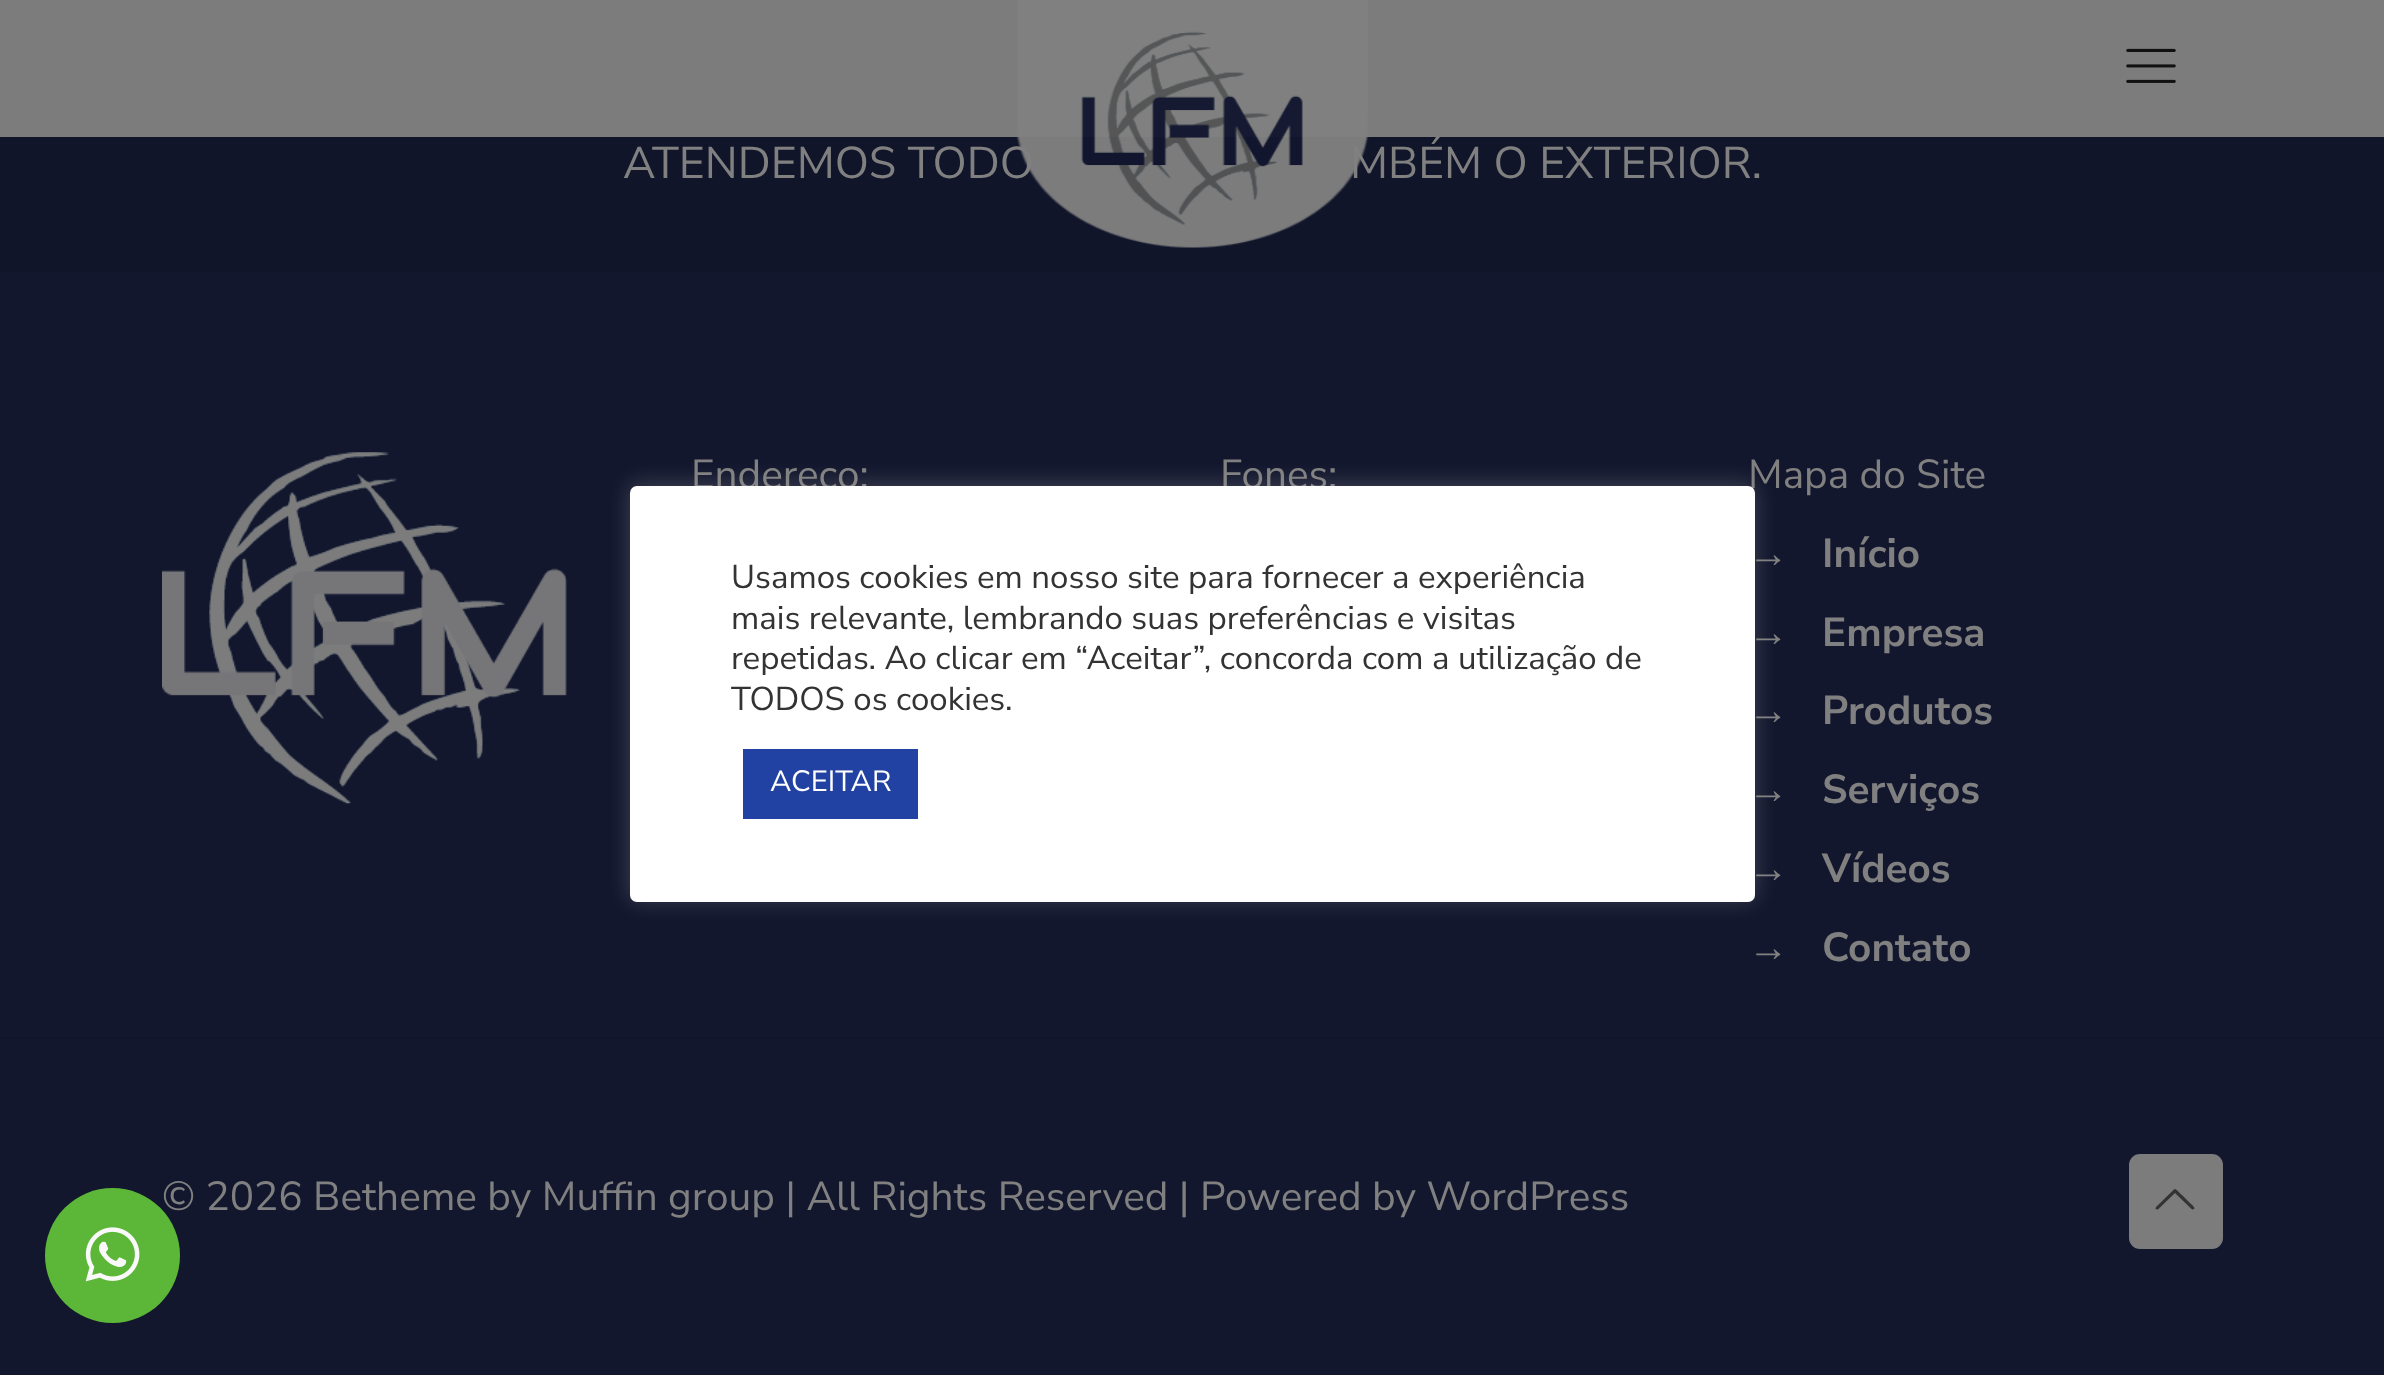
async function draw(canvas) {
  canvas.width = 2384;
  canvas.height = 1375;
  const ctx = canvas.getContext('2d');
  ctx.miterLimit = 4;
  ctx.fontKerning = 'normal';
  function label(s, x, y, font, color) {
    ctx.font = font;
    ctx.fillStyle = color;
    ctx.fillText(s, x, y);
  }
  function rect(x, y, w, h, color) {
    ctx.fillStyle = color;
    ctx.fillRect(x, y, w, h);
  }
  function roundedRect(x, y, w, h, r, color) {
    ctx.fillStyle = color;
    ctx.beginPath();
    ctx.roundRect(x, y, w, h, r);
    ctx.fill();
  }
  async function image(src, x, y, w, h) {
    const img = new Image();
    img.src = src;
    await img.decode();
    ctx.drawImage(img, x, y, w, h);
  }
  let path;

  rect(0, 0, 2384, 1375, '#13172e');
  rect(0, 0, 2384, 272, '#11152a');
  label('MBÉM O EXTERIOR.', 1350, 178, '44.5px Nunito Sans', '#808080');
  rect(0, 0, 2384, 137, '#808080f7');
  label('ATENDEMOS TODO', 623, 178, '44.5px Nunito Sans', '#808080');
  await image('assets/img1.png', 1016, 0, 353, 248);
  await image('assets/img2.png', 2126, 48, 50, 35);
  await image('assets/img3.png', 162, 452, 405, 352);
  label('Endereço:', 691, 488, '40.5px Nunito Sans', '#808080');
  label('Fones:', 1220, 488, '40.5px Nunito Sans', '#808080');
  label('Mapa do Site', 1748, 488, '40.5px Nunito Sans', '#808080');
  label('→', 1748, 567, 'bold 40.5px Liberation Sans', '#808080');
  label('Início', 1822, 567, 'bold 40.5px Nunito Sans', '#808080');
  label('→', 1748, 646, 'bold 40.5px Liberation Sans', '#808080');
  label('Empresa', 1822, 646, 'bold 40.5px Nunito Sans', '#808080');
  label('→', 1748, 724, 'bold 40.5px Liberation Sans', '#808080');
  label('Produtos', 1822, 724, 'bold 40.5px Nunito Sans', '#808080');
  label('→', 1748, 803, 'bold 40.5px Liberation Sans', '#808080');
  label('Serviços', 1822, 803, 'bold 40.5px Nunito Sans', '#808080');
  label('→', 1748, 882, 'bold 40.5px Liberation Sans', '#808080');
  label('Vídeos', 1822, 882, 'bold 40.5px Nunito Sans', '#808080');
  label('→', 1748, 961, 'bold 40.5px Liberation Sans', '#808080');
  label('Contato', 1822, 961, 'bold 40.5px Nunito Sans', '#808080');
  rect(0, 1037, 2384, 2, '#11152a');
  label('© 2026 Betheme by Muffin group | All Rights Reserved | Powered by WordPress', 162, 1210, '40.5px Nunito Sans', '#808080');
  roundedRect(2129, 1154, 94, 95, 11, '#7c7c7c');
  ctx.fillStyle = '#333336';
  path = new Path2D('M2191.5 1209L2175 1193L2161 1206.5C2160 1207.5 2157 1211.5 2155.5 1208.5L2156 1207L2174.5 1189C2176 1188.5 2181 1194.5 2182 1195L2191 1204C2191 1204 2197 1208.5 2193 1209.5Z');
  ctx.fill(path);
  ctx.fillStyle = '#acabab4d';
  ctx.filter = 'blur(11px)';
  ctx.beginPath();
  ctx.roundRect(630, 484, 1125, 416, 7);
  ctx.fill();
  ctx.filter = 'none';
  roundedRect(630, 486, 1125, 416, 7, '#fff');
  label('Usamos cookies em nosso site para fornecer a experiência', 731, 588, '33px Nunito Sans', '#333');
  label('mais relevante, lembrando suas preferências e visitas', 731, 629, '33px Nunito Sans', '#333');
  label('repetidas. Ao clicar em “Aceitar”, concorda com a utilização de', 731, 669, '33px Nunito Sans', '#333');
  label('TODOS os cookies.', 731, 710, '33px Nunito Sans', '#333');
  rect(743, 749, 175, 70, '#2242a3');
  label('ACEITAR', 770, 791, '29.25px Nunito Sans', '#fff');
  ctx.fillStyle = '#5cb738';
  ctx.beginPath();
  ctx.arc(112.5, 1255.5, 67.5, 0, 2 * Math.PI);
  ctx.fill();
  await image('assets/img4.png', 85, 1227, 55, 55);
}

draw(document.querySelector('canvas'));
